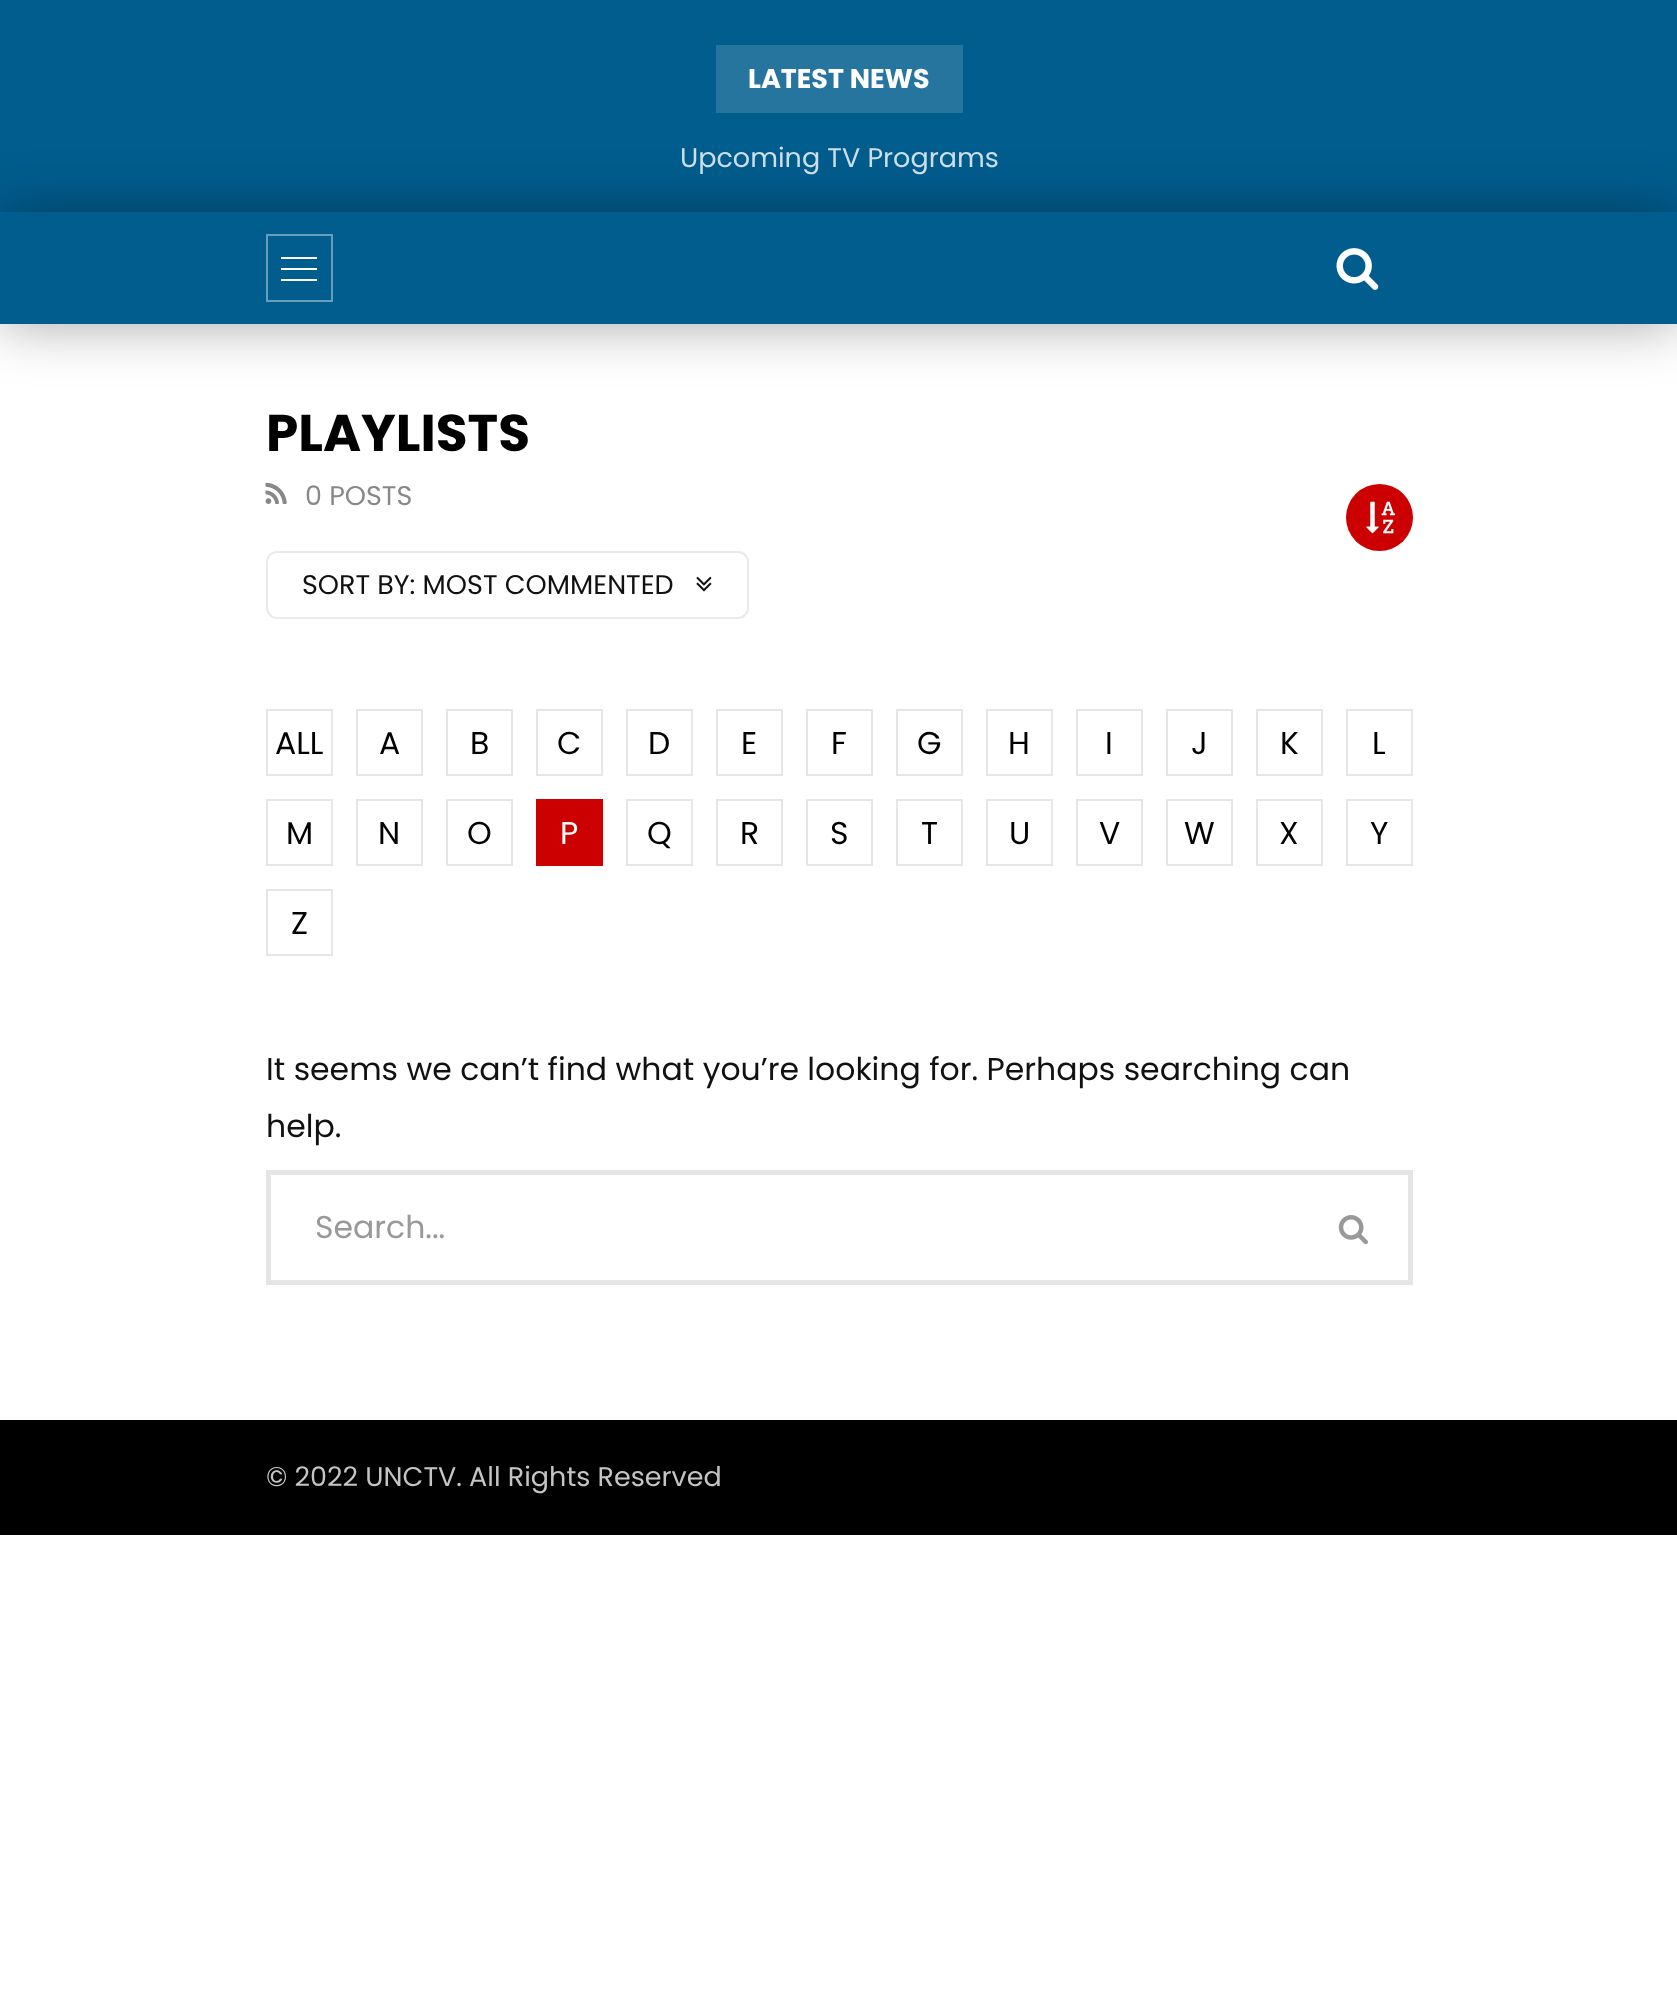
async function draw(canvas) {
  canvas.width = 1677;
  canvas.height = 1990;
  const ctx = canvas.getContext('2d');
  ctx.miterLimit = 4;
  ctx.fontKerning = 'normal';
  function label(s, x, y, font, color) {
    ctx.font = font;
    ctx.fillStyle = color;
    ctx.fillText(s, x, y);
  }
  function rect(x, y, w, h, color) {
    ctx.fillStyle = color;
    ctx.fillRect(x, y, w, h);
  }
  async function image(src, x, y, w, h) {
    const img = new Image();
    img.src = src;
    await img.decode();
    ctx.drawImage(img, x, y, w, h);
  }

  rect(0, 0, 1677, 1990, '#fff');
  rect(0, 0, 1677, 212, '#005d8e');
  rect(716, 45, 247, 68, '#26759f');
  label('LATEST NEWS', 748, 88, 'bold 27px Poppins', '#fff');
  ctx.fillStyle = '#00000059';
  ctx.filter = 'blur(28px)';
  ctx.beginPath();
  ctx.rect(0, 212, 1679, 112);
  ctx.fill();
  ctx.filter = 'none';
  label('Upcoming TV Programs', 680, 167, '27px Poppins', '#ccdee8');
  rect(0, 212, 1677, 112, '#005d8e');
  ctx.strokeStyle = '#669ebb';
  ctx.lineWidth = 2;
  ctx.strokeRect(267, 235, 65, 66);
  rect(281, 257, 36, 2, '#fff');
  rect(281, 268, 36, 2, '#fff');
  rect(281, 279, 36, 2, '#fff');
  await image('assets/img1.png', 1336, 248, 43, 42);
  label('PLAYLISTS', 266, 451, 'bold 51.75px Poppins', '#000');
  await image('assets/img2.png', 265, 482, 22, 22);
  label('0 POSTS', 305, 505, '27px Poppins', '#888');
  ctx.beginPath();
  ctx.roundRect(267, 552, 481, 66, 10);
  ctx.strokeStyle = '#eaeaea';
  ctx.stroke();
  label('SORT BY: MOST COMMENTED', 302, 594, '27px Poppins', '#111');
  await image('assets/img3.png', 696, 576, 16, 16);
  ctx.fillStyle = '#c00';
  ctx.beginPath();
  ctx.arc(1379.5, 517.5, 33.5, 0, 2 * Math.PI);
  ctx.fill();
  await image('assets/img4.png', 1366, 501, 29, 33);
  ctx.strokeStyle = '#e6e6e6';
  ctx.strokeRect(267, 710, 65, 65);
  label('ALL', 275, 754, '31.5px Poppins', '#000');
  ctx.strokeRect(357, 710, 65, 65);
  label('A', 379, 754, '31.5px Poppins', '#000');
  ctx.strokeRect(447, 710, 65, 65);
  label('B', 470, 754, '31.5px Poppins', '#000');
  ctx.strokeRect(537, 710, 65, 65);
  label('C', 557, 754, '31.5px Poppins', '#000');
  ctx.strokeRect(627, 710, 65, 65);
  label('D', 648, 754, '31.5px Poppins', '#000');
  ctx.strokeRect(717, 710, 65, 65);
  label('E', 741, 754, '31.5px Poppins', '#000');
  ctx.strokeRect(807, 710, 65, 65);
  label('F', 831, 754, '31.5px Poppins', '#000');
  ctx.strokeRect(897, 710, 65, 65);
  label('G', 917, 754, '31.5px Poppins', '#000');
  ctx.strokeRect(987, 710, 65, 65);
  label('H', 1008, 754, '31.5px Poppins', '#000');
  ctx.strokeRect(1077, 710, 65, 65);
  label('I', 1105, 754, '31.5px Poppins', '#000');
  ctx.strokeRect(1167, 710, 65, 65);
  label('J', 1191, 754, '31.5px Poppins', '#000');
  ctx.strokeRect(1257, 710, 65, 65);
  label('K', 1280, 754, '31.5px Poppins', '#000');
  ctx.strokeRect(1347, 710, 65, 65);
  label('L', 1372, 754, '31.5px Poppins', '#000');
  ctx.strokeRect(267, 800, 65, 65);
  label('M', 286, 844, '31.5px Poppins', '#000');
  ctx.strokeRect(357, 800, 65, 65);
  label('N', 378, 844, '31.5px Poppins', '#000');
  ctx.strokeRect(447, 800, 65, 65);
  label('O', 467, 844, '31.5px Poppins', '#000');
  rect(536, 799, 67, 67, '#c00');
  label('P', 560, 844, '31.5px Poppins', '#fff');
  ctx.strokeRect(627, 800, 65, 65);
  label('Q', 647, 844, '31.5px Poppins', '#000');
  ctx.strokeRect(717, 800, 65, 65);
  label('R', 740, 844, '31.5px Poppins', '#000');
  ctx.strokeRect(807, 800, 65, 65);
  label('S', 830, 844, '31.5px Poppins', '#000');
  ctx.strokeRect(897, 800, 65, 65);
  label('T', 921, 844, '31.5px Poppins', '#000');
  ctx.strokeRect(987, 800, 65, 65);
  label('U', 1009, 844, '31.5px Poppins', '#000');
  ctx.strokeRect(1077, 800, 65, 65);
  label('V', 1099, 844, '31.5px Poppins', '#000');
  ctx.strokeRect(1167, 800, 65, 65);
  label('W', 1184, 844, '31.5px Poppins', '#000');
  ctx.strokeRect(1257, 800, 65, 65);
  label('X', 1279, 844, '31.5px Poppins', '#000');
  ctx.strokeRect(1347, 800, 65, 65);
  label('Y', 1370, 844, '31.5px Poppins', '#000');
  ctx.strokeRect(267, 890, 65, 65);
  label('Z', 291, 934, '31.5px Poppins', '#000');
  label('It seems we can’t find what you’re looking for. Perhaps searching can', 266, 1080, '31.5px Poppins', '#111');
  label('help.', 266, 1137, '31.5px Poppins', '#111');
  ctx.strokeStyle = '#e5e5e5';
  ctx.lineWidth = 5;
  ctx.strokeRect(268.5, 1172.5, 1142, 110);
  label('Search...', 315, 1238, '31.5px Poppins', '#999');
  await image('assets/img5.png', 1338, 1215, 30, 30);
  rect(0, 1420, 1677, 115, '#000');
  label('© 2022 UNCTV. All Rights Reserved', 266, 1486, '27px Poppins', '#c4c4c4');
}

draw(document.querySelector('canvas'));
